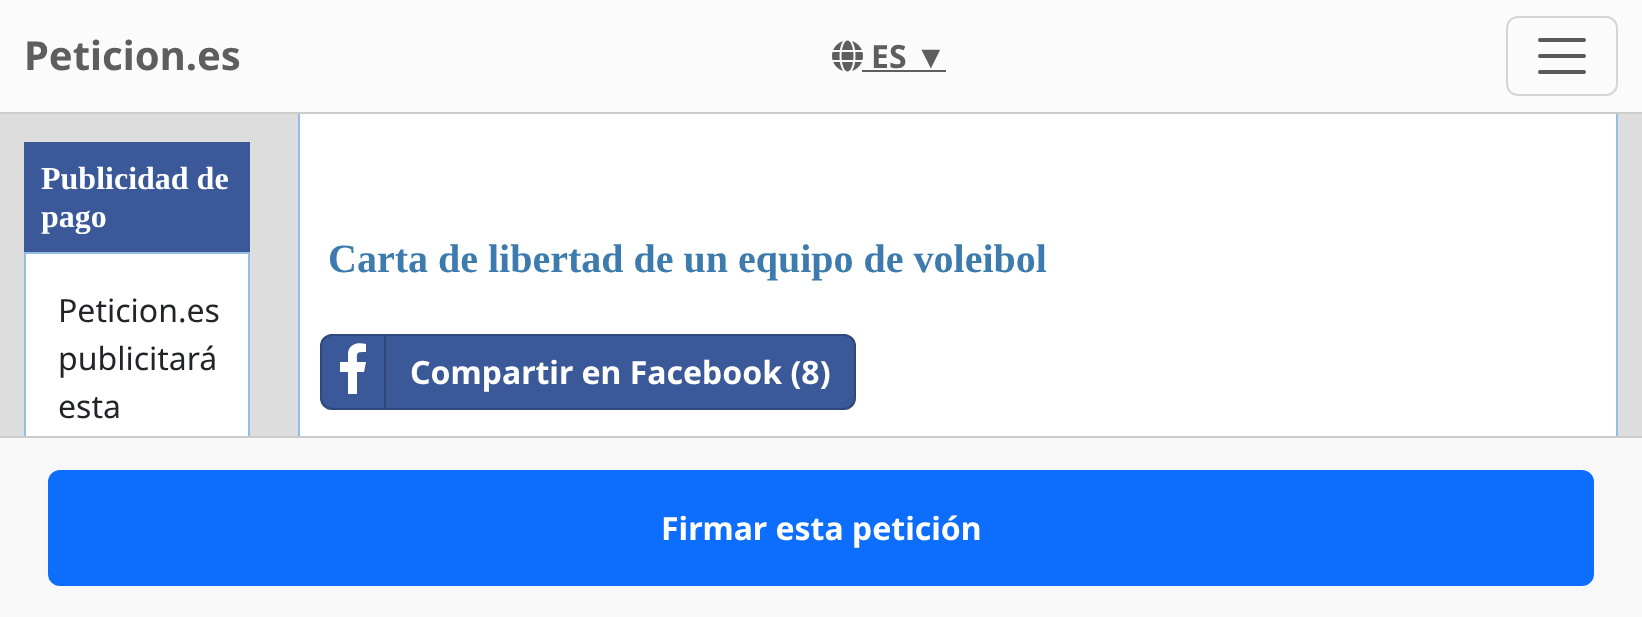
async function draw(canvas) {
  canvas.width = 1642;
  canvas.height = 617;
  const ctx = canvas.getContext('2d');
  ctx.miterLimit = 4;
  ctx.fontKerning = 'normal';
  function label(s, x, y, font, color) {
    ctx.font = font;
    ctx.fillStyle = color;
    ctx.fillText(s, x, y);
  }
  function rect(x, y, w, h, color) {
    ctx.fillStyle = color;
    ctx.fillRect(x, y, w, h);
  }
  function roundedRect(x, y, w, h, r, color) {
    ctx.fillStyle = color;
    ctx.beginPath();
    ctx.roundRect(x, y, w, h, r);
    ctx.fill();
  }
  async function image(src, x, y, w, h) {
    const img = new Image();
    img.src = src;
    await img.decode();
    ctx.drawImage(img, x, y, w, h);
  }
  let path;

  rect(0, 0, 1642, 617, '#ddd');
  rect(0, 0, 1642, 112, '#fbfbfb');
  rect(0, 112, 1642, 2, '#ccc');
  label('Peticion.es', 24, 70, 'bold 40px Noto Sans', '#5e5e5e');
  await image('assets/img1.png', 832, 40, 31, 32);
  label('ES', 871, 68, 'bold 32px Noto Sans', '#5e5e5e');
  rect(862, 70, 84, 2, '#5e5e5e');
  label('▼', 915, 68, '32px Liberation Sans', '#5e5e5e');
  ctx.beginPath();
  ctx.roundRect(1507, 17, 110, 78, 11);
  ctx.strokeStyle = '#d5d5d5';
  ctx.lineWidth = 2;
  ctx.stroke();
  path = new Path2D('M1540 40H1584M1540 56H1584M1540 72H1584');
  ctx.strokeStyle = '#585b5e';
  ctx.lineWidth = 4;
  ctx.lineCap = 'round';
  ctx.stroke(path);
  rect(24, 142, 226, 110, '#3b5998');
  label('Publicidad de', 41, 189, 'bold 32px Liberation Serif', '#fff');
  label('pago', 41, 227, 'bold 32px Liberation Serif', '#fff');
  rect(26, 254, 222, 182, '#fff');
  ctx.strokeStyle = '#95bce2';
  ctx.lineWidth = 2;
  ctx.strokeRect(25, 253, 224, 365);
  label('Peticion.es', 58, 322, '32px Noto Sans', '#212529');
  label('publicitará', 58, 370, '32px Noto Sans', '#212529');
  label('esta', 58, 418, '32px Noto Sans', '#212529');
  rect(300, 114, 1316, 322, '#fff');
  ctx.fillStyle = '#95bce2';
  path = new Path2D('M298 114H1618V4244C1618 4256 1608 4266 1596 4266H320C308 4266 298 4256 298 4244ZM300 114H1616V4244C1616 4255 1607 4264 1596 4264H320C309 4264 300 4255 300 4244Z');
  ctx.fill(path, 'evenodd');
  label('Carta de libertad de un equipo de voleibol', 328, 272, 'bold 40px Liberation Serif', '#3d7bae');
  roundedRect(320, 334, 536, 76, 12, '#3b5998');
  ctx.beginPath();
  ctx.roundRect(321, 335, 534, 74, 11);
  ctx.strokeStyle = '#00000033';
  ctx.stroke();
  rect(384, 336, 2, 72, '#2f477a');
  ctx.fillStyle = '#fff';
  path = new Path2D('M348 394V372H340V362H348V353C349 343 359 342 366 344V352C356 352 357 352 357 362H366L364 372H357V394Z');
  ctx.fill(path);
  label('Compartir en Facebook (8)', 410, 384, 'bold 32px Noto Sans', '#fff');
  rect(0, 438, 1642, 179, '#f8f8f8');
  rect(0, 436, 1642, 2, '#ccc');
  ctx.fillStyle = '#0d6efd';
  ctx.beginPath();
  ctx.roundRect(49, 471, 1544, 114, 11);
  ctx.fill();
  ctx.strokeStyle = '#0d6efd';
  ctx.stroke();
  label('Firmar esta petición', 661, 540, 'bold 32px Noto Sans', '#fff');
}

draw(document.querySelector('canvas'));
